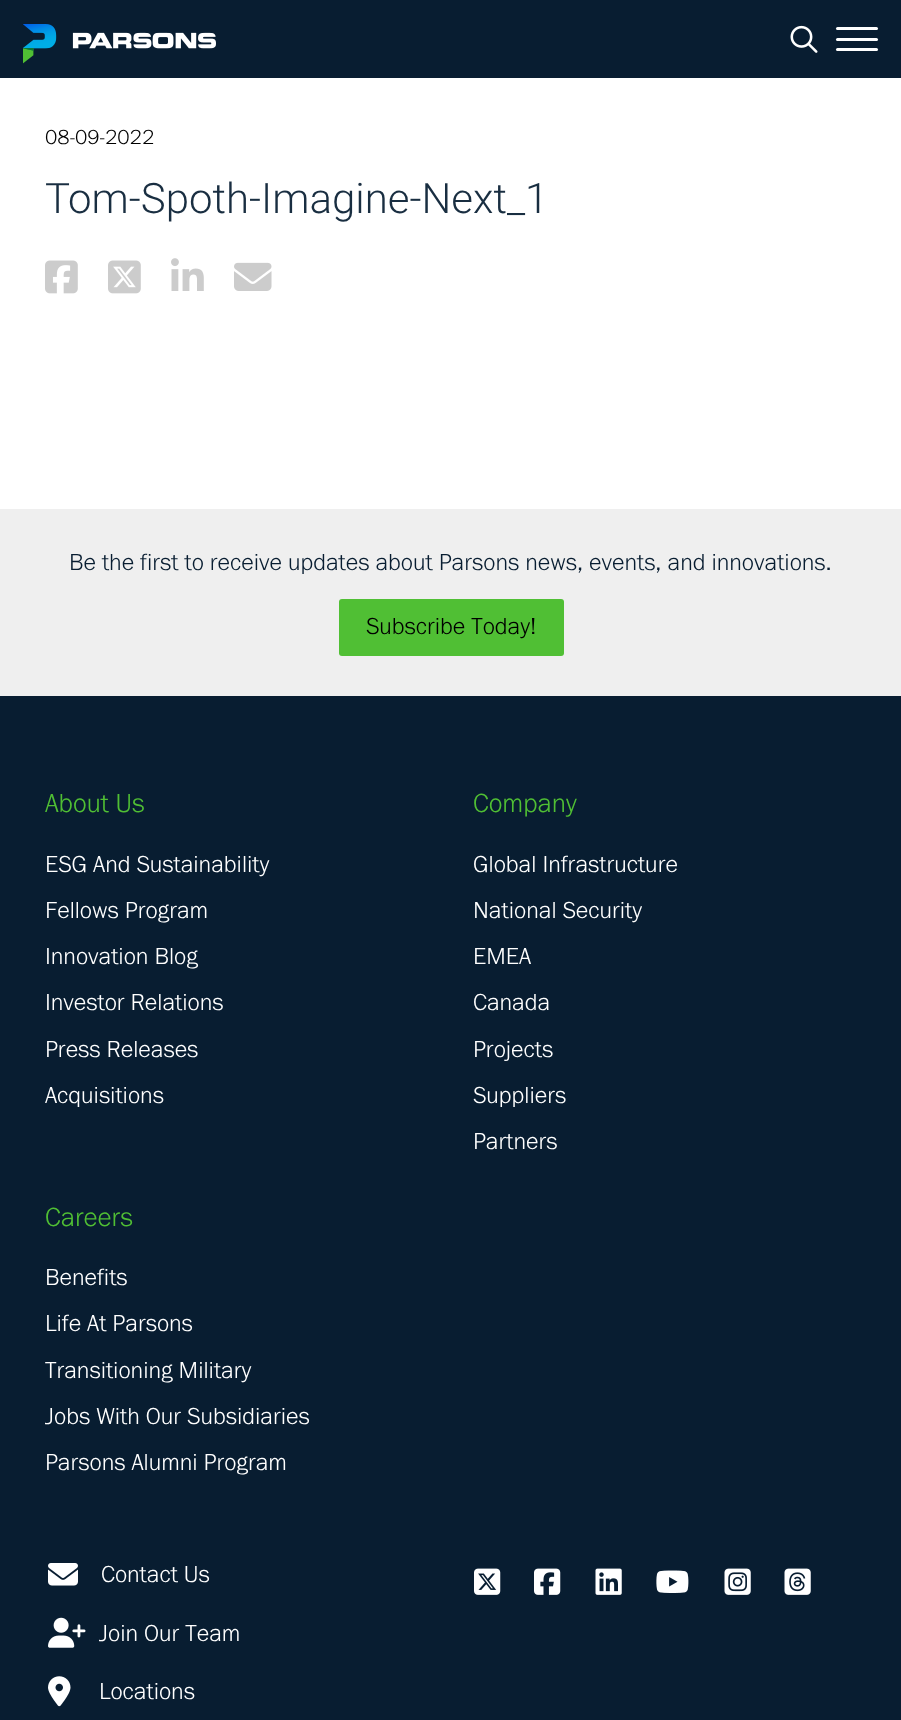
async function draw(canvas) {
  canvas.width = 901;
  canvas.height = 1720;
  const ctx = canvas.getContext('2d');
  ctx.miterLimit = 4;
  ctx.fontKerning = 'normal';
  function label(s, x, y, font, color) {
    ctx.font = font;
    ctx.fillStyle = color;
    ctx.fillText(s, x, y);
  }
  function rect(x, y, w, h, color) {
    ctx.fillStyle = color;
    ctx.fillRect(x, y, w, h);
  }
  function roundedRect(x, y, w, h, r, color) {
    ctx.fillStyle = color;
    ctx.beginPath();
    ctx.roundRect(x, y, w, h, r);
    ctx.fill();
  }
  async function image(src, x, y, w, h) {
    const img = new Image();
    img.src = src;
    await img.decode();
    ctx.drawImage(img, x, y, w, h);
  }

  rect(0, 0, 901, 1720, '#fff');
  rect(0, 0, 901, 78, '#081d31');
  await image('assets/img1.png', 23, 24, 193, 40);
  await image('assets/img2.png', 790, 25, 28, 28);
  roundedRect(836, 27, 42, 3, 1.5, '#fff');
  roundedRect(836, 38, 42, 3, 1.5, '#fff');
  roundedRect(836, 48, 42, 3, 1.5, '#fff');
  label('08-09-2022', 45, 144, '21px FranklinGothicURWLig', '#000');
  label('Tom-Spoth-Imagine-Next_1', 45, 213, '300 42px Roboto', '#192e41');
  await image('assets/img3.png', 45, 260, 33, 34);
  await image('assets/img4.png', 108, 260, 33, 34);
  await image('assets/img5.png', 171, 258, 33, 33);
  await image('assets/img6.png', 234, 262, 38, 29);
  rect(0, 509, 901, 187, '#efefef');
  label('Be the first to receive updates about Parsons news, events, and innovations.', 69, 570, '24px FranklinGothicURWLig', '#081d31');
  roundedRect(339, 599, 225, 57, 3, '#50bf34');
  label('Subscribe Today!', 366, 634, '24px FranklinGothicURWLig', '#000');
  rect(0, 696, 901, 1024, '#081d31');
  label('About Us', 45, 812, '27px FranklinGothicURWLig', '#50bf34');
  label('ESG And Sustainability', 45, 872, '24px FranklinGothicURWLig', '#fff');
  label('Fellows Program', 45, 918, '24px FranklinGothicURWLig', '#fff');
  label('Innovation Blog', 45, 964, '24px FranklinGothicURWLig', '#fff');
  label('Investor Relations', 45, 1010, '24px FranklinGothicURWLig', '#fff');
  label('Press Releases', 45, 1057, '24px FranklinGothicURWLig', '#fff');
  label('Acquisitions', 45, 1103, '24px FranklinGothicURWLig', '#fff');
  label('Company', 473, 812, '27px FranklinGothicURWLig', '#50bf34');
  label('Global Infrastructure', 473, 872, '24px FranklinGothicURWLig', '#fff');
  label('National Security', 473, 918, '24px FranklinGothicURWLig', '#fff');
  label('EMEA', 473, 964, '24px FranklinGothicURWLig', '#fff');
  label('Canada', 473, 1010, '24px FranklinGothicURWLig', '#fff');
  label('Projects', 473, 1057, '24px FranklinGothicURWLig', '#fff');
  label('Suppliers', 473, 1103, '24px FranklinGothicURWLig', '#fff');
  label('Partners', 473, 1149, '24px FranklinGothicURWLig', '#fff');
  label('Careers', 45, 1226, '27px FranklinGothicURWLig', '#50bf34');
  label('Benefits', 45, 1285, '24px FranklinGothicURWLig', '#fff');
  label('Life At Parsons', 45, 1331, '24px FranklinGothicURWLig', '#fff');
  label('Transitioning Military', 45, 1378, '24px FranklinGothicURWLig', '#fff');
  label('Jobs With Our Subsidiaries', 45, 1424, '24px FranklinGothicURWLig', '#fff');
  label('Parsons Alumni Program', 45, 1470, '24px FranklinGothicURWLig', '#fff');
  await image('assets/img7.png', 48, 1563, 30, 23);
  label('Contact Us', 101, 1582, '24px FranklinGothicURWLig', '#fff');
  await image('assets/img8.png', 48, 1617, 38, 31);
  label('Join Our Team', 99, 1641, '24px FranklinGothicURWLig', '#fff');
  await image('assets/img9.png', 48, 1676, 23, 31);
  label('Locations', 99, 1699, '24px FranklinGothicURWLig', '#fff');
  await image('assets/img10.png', 474, 1568, 27, 27);
  await image('assets/img11.png', 534, 1568, 27, 27);
  await image('assets/img12.png', 595, 1568, 27, 27);
  await image('assets/img13.png', 656, 1570, 33, 23);
  await image('assets/img14.png', 724, 1568, 27, 27);
  await image('assets/img15.png', 784, 1568, 27, 27);
}

draw(document.querySelector('canvas'));
